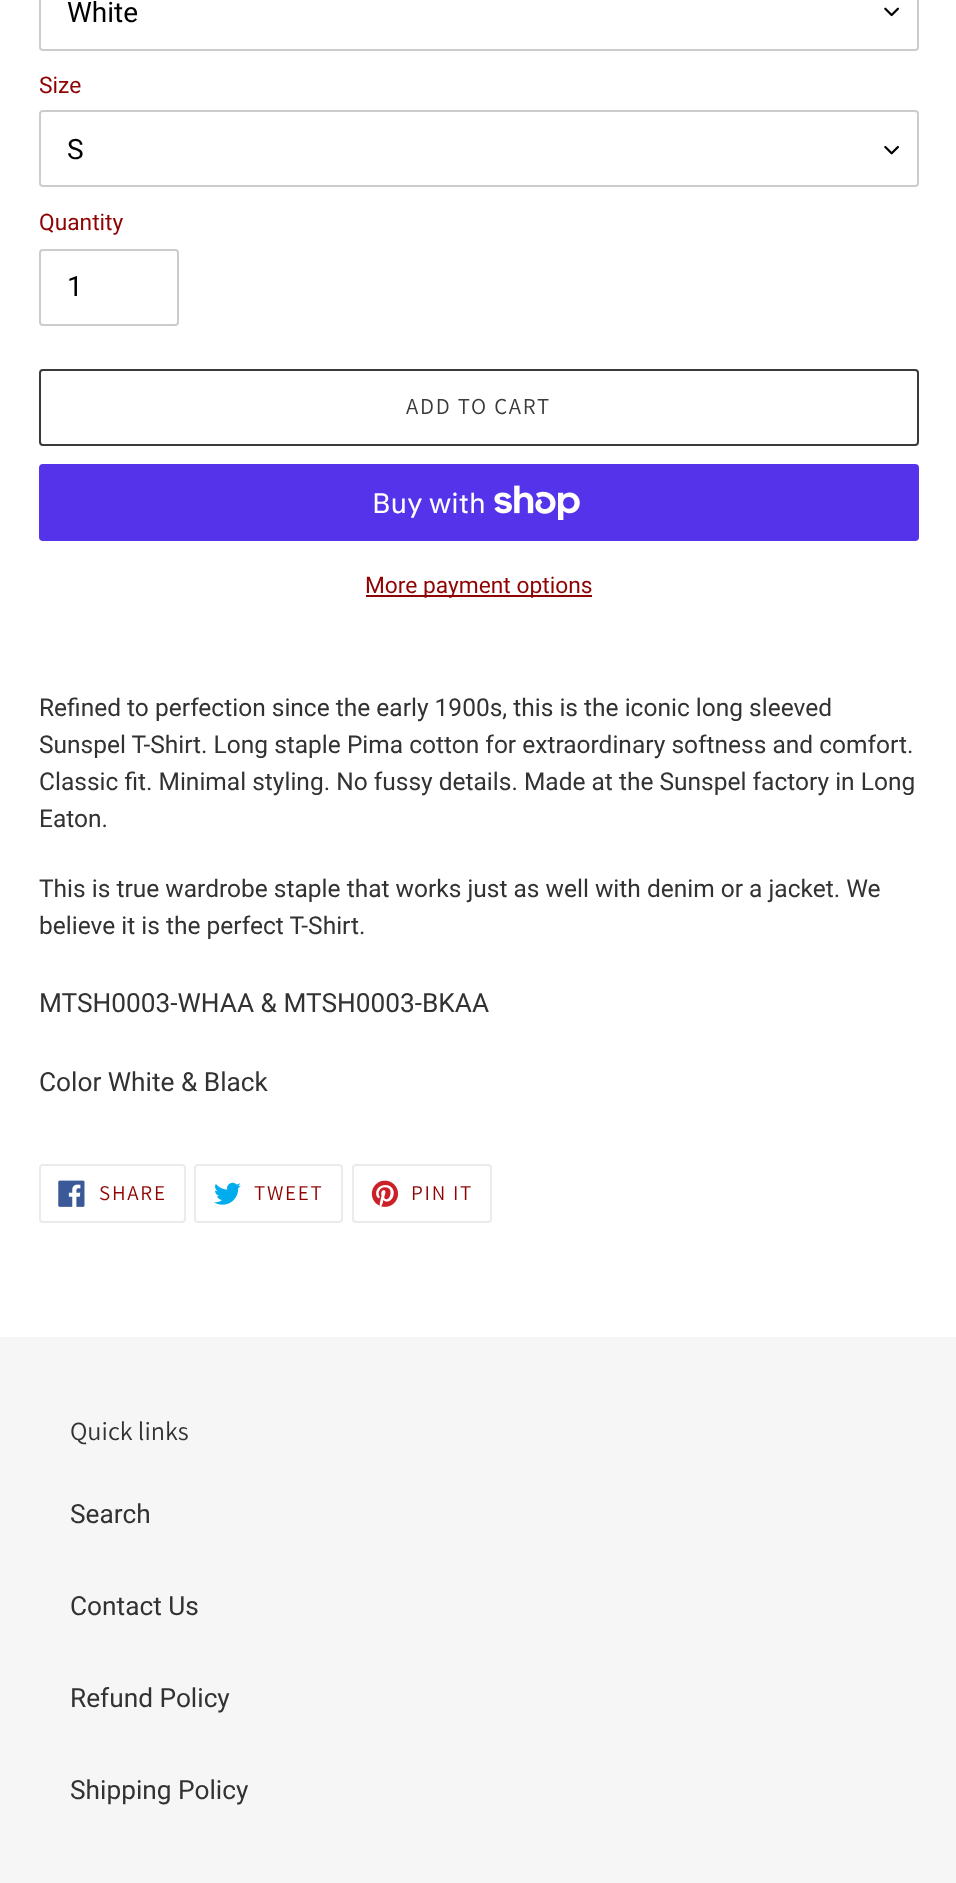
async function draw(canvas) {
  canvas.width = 956;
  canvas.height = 1883;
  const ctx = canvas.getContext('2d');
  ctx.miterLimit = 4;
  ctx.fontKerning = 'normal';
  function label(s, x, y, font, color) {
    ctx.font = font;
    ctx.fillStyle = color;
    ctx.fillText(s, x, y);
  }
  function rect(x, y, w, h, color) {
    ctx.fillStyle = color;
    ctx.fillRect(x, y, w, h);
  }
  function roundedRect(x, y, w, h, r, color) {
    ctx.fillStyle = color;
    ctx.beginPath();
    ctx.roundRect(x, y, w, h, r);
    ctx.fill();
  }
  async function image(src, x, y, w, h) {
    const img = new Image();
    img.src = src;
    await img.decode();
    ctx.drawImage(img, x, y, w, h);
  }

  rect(0, 0, 956, 1883, '#fff');
  await image('assets/img1.png', 884, 7, 15, 10);
  ctx.beginPath();
  ctx.roundRect(40, -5, 878, 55, 3);
  ctx.strokeStyle = '#ccc';
  ctx.lineWidth = 2;
  ctx.stroke();
  label('White', 67, 22, '28px Roboto', '#000');
  label('Size', 39, 93, '22.75px Roboto', '#8f0303');
  await image('assets/img2.png', 884, 145, 15, 10);
  ctx.beginPath();
  ctx.roundRect(40, 111, 878, 75, 3);
  ctx.stroke();
  label('S', 67, 159, '28px Roboto', '#000');
  label('Quantity', 39, 230, '22.75px Roboto', '#8f0303');
  ctx.beginPath();
  ctx.roundRect(40, 250, 138, 75, 3);
  ctx.stroke();
  label('1', 67, 296, '28px Roboto', '#000');
  ctx.beginPath();
  ctx.roundRect(40, 370, 878, 75, 3);
  ctx.strokeStyle = '#3a3a3a';
  ctx.stroke();
  ctx.letterSpacing = '1.75px';
  label('ADD TO CART', 406, 414, '22.75px Assistant', '#3a3a3a');
  roundedRect(39, 464, 880, 77, 4, '#5433eb');
  ctx.letterSpacing = '0px';
  label('Buy with', 372, 513, '28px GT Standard', '#fff');
  await image('assets/img3.png', 494, 485, 86, 35);
  rect(366, 595, 226, 2, '#8f0303');
  label('More payment options', 365, 593, '22.75px Roboto', '#8f0303');
  label('Refined to perfection since the early 1900s, this is the iconic long sleeved', 39, 716, '24.5px Roboto', '#333232');
  label('Sunspel T-Shirt. Long staple Pima cotton for extraordinary softness and comfort.', 39, 753, '24.5px Roboto', '#333232');
  label('Classic fit. Minimal styling. No fussy details. Made at the Sunspel factory in Long', 39, 790, '24.5px Roboto', '#333232');
  label('Eaton.', 39, 827, '24.5px Roboto', '#333232');
  label('This is true wardrobe staple that works just as well with denim or a jacket. We', 39, 897, '24.5px Roboto', '#333232');
  label('believe it is the perfect T-Shirt.', 39, 934, '24.5px Roboto', '#333232');
  label('MTSH0003-WHAA & MTSH0003-BKAA', 39, 1012, '26.25px Roboto', '#333232');
  label('Color White & Black', 39, 1091, '26.25px Roboto', '#333232');
  ctx.beginPath();
  ctx.roundRect(40, 1165, 145, 57, 3);
  ctx.strokeStyle = '#ebebeb';
  ctx.stroke();
  await image('assets/img4.png', 58, 1180, 27, 27);
  ctx.letterSpacing = '1.75px';
  label('SHARE', 99, 1200, '21px Assistant', '#8f0303');
  ctx.beginPath();
  ctx.roundRect(195, 1165, 147, 57, 3);
  ctx.stroke();
  await image('assets/img5.png', 214, 1182, 27, 23);
  label('TWEET', 254, 1200, '21px Assistant', '#8f0303');
  ctx.beginPath();
  ctx.roundRect(353, 1165, 138, 57, 3);
  ctx.stroke();
  await image('assets/img6.png', 371, 1180, 28, 27);
  label('PIN IT', 411, 1200, '21px Assistant', '#8f0303');
  rect(0, 1337, 956, 546, '#f6f6f6');
  ctx.letterSpacing = '0px';
  label('Quick links', 70, 1440, '26.25px Assistant', '#333232');
  label('Search', 70, 1523, '26.25px Roboto', '#333232');
  label('Contact Us', 70, 1615, '26.25px Roboto', '#333232');
  label('Refund Policy', 70, 1707, '26.25px Roboto', '#333232');
  label('Shipping Policy', 70, 1799, '26.25px Roboto', '#333232');
}

draw(document.querySelector('canvas'));
